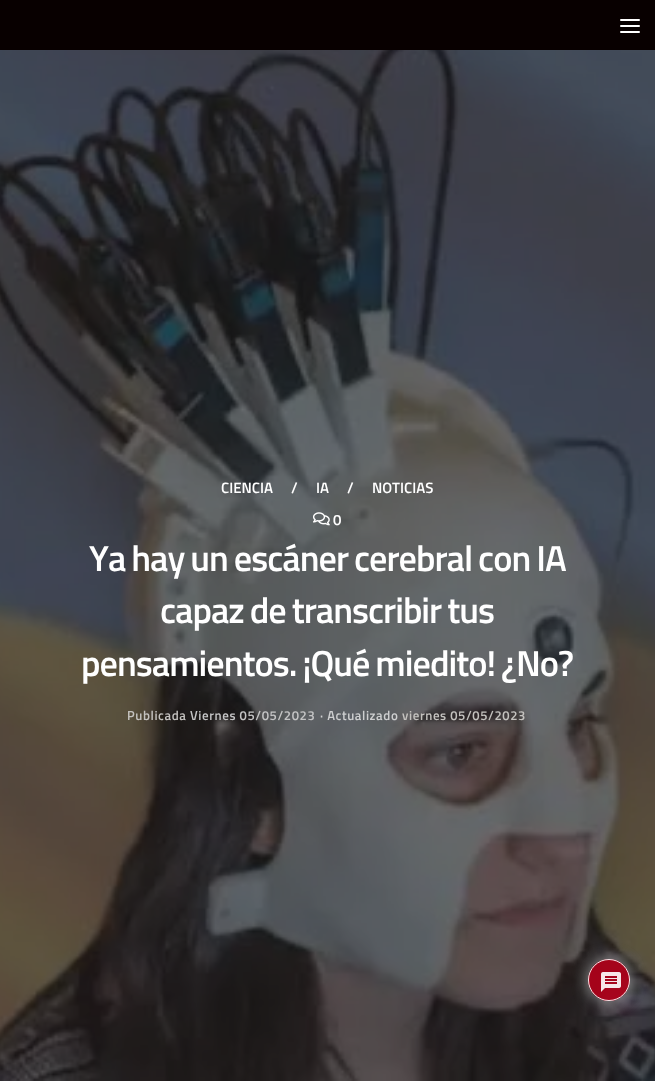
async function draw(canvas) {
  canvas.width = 655;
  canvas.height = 1081;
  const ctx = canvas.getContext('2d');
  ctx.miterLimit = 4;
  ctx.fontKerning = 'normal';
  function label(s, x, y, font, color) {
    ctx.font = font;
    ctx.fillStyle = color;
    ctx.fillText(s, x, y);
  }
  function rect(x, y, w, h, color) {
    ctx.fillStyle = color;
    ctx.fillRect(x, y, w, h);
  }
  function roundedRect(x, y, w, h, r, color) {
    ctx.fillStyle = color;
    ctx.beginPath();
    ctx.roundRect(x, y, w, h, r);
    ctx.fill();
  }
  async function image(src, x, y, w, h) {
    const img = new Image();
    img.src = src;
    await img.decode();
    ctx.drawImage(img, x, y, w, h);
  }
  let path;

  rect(0, 0, 655, 1081, '#fff');
  rect(0, 0, 655, 50, '#080000');
  roundedRect(620, 19, 20, 2, 1, '#fff');
  roundedRect(620, 25, 20, 2, 1, '#fff');
  roundedRect(620, 31, 20, 2, 1, '#fff');
  await image('assets/img1.png', 0, 50, 655, 1031);
  label('CIENCIA', 221, 493, '600 15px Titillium', '#fff');
  label('/', 291, 493, '600 15px Titillium', '#fff');
  label('IA', 316, 493, '600 15px Titillium', '#fff');
  label('/', 347, 493, '600 15px Titillium', '#fff');
  label('NOTICIAS', 372, 493, '600 15px Titillium', '#fff');
  await image('assets/img2.png', 313, 512, 17, 14);
  label('0', 333, 525, '600 15px Titillium', '#fff');
  ctx.letterSpacing = '-1px';
  ctx.wordSpacing = '-1px';
  label('Ya hay un escáner cerebral con IA', 89, 571, '600 36.3px Titillium', '#fff');
  label('capaz de transcribir tus', 160, 623, '600 36.3px Titillium', '#fff');
  label('pensamientos. ¡Qué miedito! ¿No?', 81, 676, '600 36.3px Titillium', '#fff');
  ctx.letterSpacing = '0.6px';
  ctx.wordSpacing = '0px';
  label('Publicada', 127, 720, '600 13px Titillium', '#c4c2bf');
  label('Viernes 05/05/2023', 190, 720, '600 13px Titillium', '#c4c4c5');
  label('· Actualizado', 320, 720, '600 13px Titillium', '#cecfd0');
  label('viernes 05/05/2023', 402, 720, '600 13px Titillium', '#c4c2bf');
  ctx.save();
  path = new Path2D('M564 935H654V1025H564ZM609 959C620.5 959 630 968.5 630 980C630 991.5 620.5 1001 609 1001C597.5 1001 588 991.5 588 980C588 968.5 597.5 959 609 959Z');
  ctx.clip(path, 'evenodd');
  ctx.fillStyle = '#aaaaaae6';
  ctx.filter = 'blur(7.5px)';
  ctx.beginPath();
  ctx.roundRect(588, 959, 42, 42, 21);
  ctx.fill();
  ctx.filter = 'none';
  ctx.restore();
  ctx.fillStyle = '#b30019e6';
  ctx.beginPath();
  ctx.arc(609, 980, 21, 0, 2 * Math.PI);
  ctx.fill();
  ctx.beginPath();
  ctx.arc(609, 980, 20.5, 0, 2 * Math.PI);
  ctx.strokeStyle = '#ffffffe6';
  ctx.stroke();
  await image('assets/img3.png', 601, 972, 20, 20);
}

draw(document.querySelector('canvas'));
